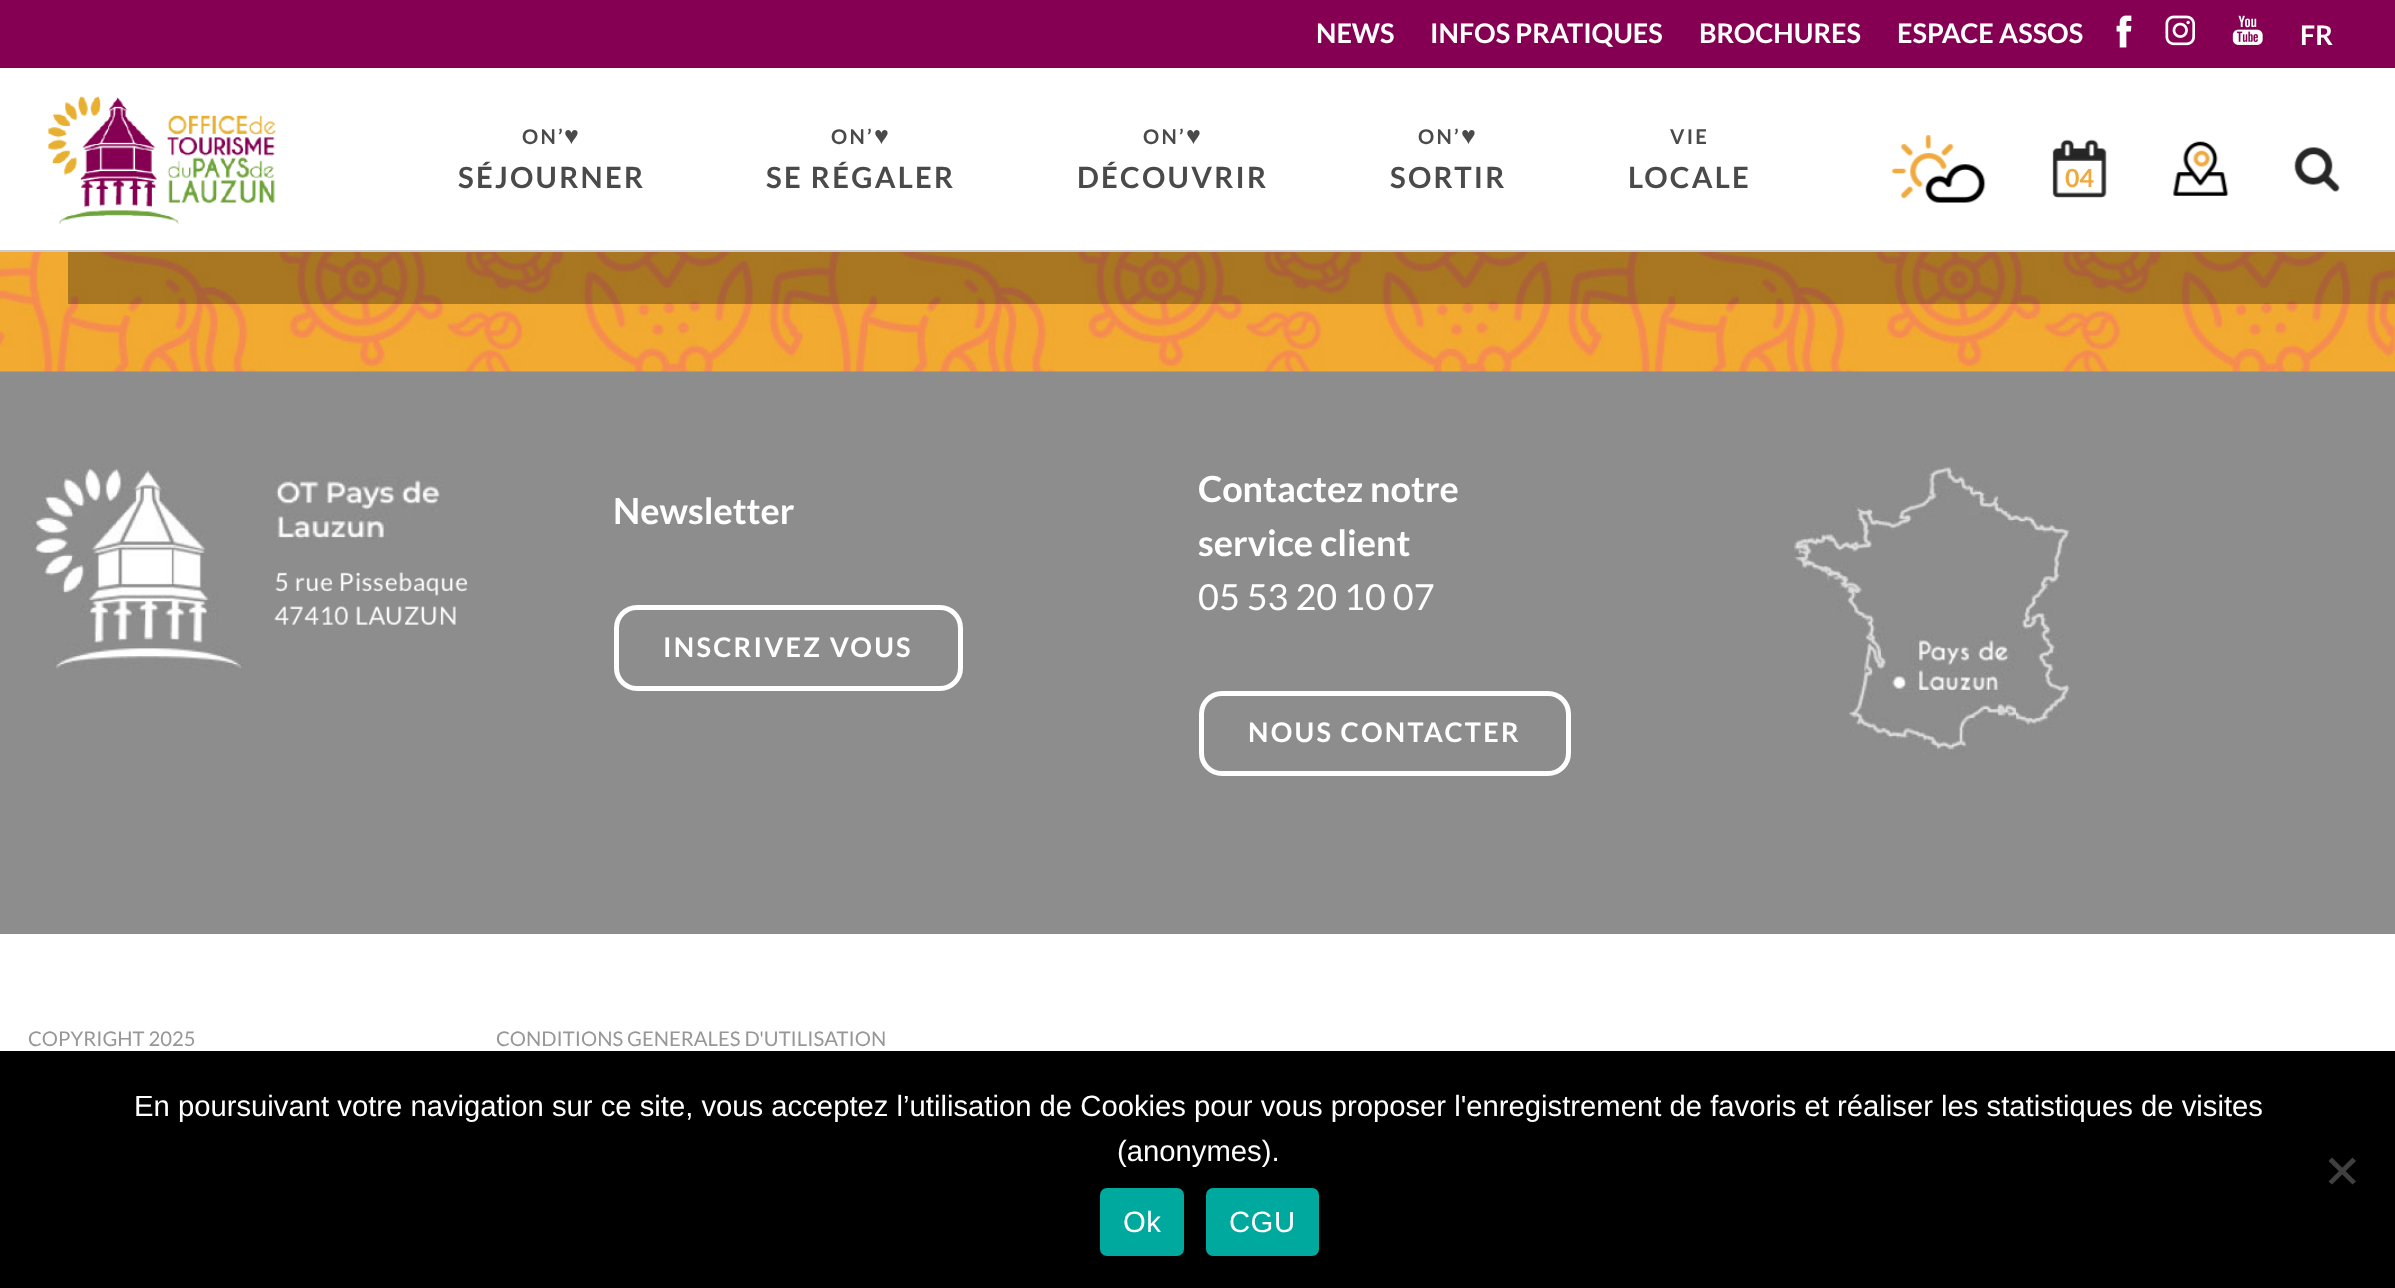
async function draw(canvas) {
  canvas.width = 2395;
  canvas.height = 1288;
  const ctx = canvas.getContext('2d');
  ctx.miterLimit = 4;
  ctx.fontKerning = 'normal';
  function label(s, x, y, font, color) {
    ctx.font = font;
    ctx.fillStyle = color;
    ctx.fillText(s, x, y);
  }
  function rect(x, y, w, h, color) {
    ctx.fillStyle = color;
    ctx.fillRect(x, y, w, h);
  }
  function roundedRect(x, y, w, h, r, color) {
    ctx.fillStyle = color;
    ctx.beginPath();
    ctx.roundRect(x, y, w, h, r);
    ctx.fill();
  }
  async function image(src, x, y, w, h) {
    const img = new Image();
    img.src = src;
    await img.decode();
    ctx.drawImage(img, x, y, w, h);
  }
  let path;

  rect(0, 0, 2395, 1288, '#fff');
  rect(0, 250, 2395, 2, '#ccc');
  rect(0, 0, 2395, 68, '#850052');
  label('NEWS', 1316, 43, 'bold 27px Lato', '#fff');
  label('INFOS PRATIQUES', 1430, 43, 'bold 27px Lato', '#fff');
  label('BROCHURES', 1699, 43, 'bold 27px Lato', '#fff');
  label('ESPACE ASSOS', 1897, 43, 'bold 27px Lato', '#fff');
  await image('assets/img1.png', 2116, 15, 16, 33);
  await image('assets/img2.png', 2165, 15, 30, 31);
  await image('assets/img3.png', 2232, 15, 31, 30);
  label('FR', 2300, 45, 'bold 27px Lato', '#fff');
  await image('assets/img4.png', 48, 96, 228, 128);
  ctx.letterSpacing = '2.25px';
  label('ON’', 522, 144, 'bold 20.25px Lato', '#4a4a4a');
  label('♥', 564, 144, 'bold 25px Liberation Sans', '#4a4a4a');
  label('SÉJOURNER', 458, 188, 'bold 29.25px Lato', '#4a4a4a');
  label('ON’', 831, 144, 'bold 20.25px Lato', '#4a4a4a');
  label('♥', 874, 144, 'bold 25px Liberation Sans', '#4a4a4a');
  label('SE RÉGALER', 766, 188, 'bold 29.25px Lato', '#4a4a4a');
  label('ON’', 1143, 144, 'bold 20.25px Lato', '#4a4a4a');
  label('♥', 1186, 144, 'bold 25px Liberation Sans', '#4a4a4a');
  label('DÉCOUVRIR', 1077, 188, 'bold 29.25px Lato', '#4a4a4a');
  label('ON’', 1418, 144, 'bold 20.25px Lato', '#4a4a4a');
  label('♥', 1461, 144, 'bold 25px Liberation Sans', '#4a4a4a');
  label('SORTIR', 1390, 188, 'bold 29.25px Lato', '#4a4a4a');
  label('VIE', 1670, 144, 'bold 20.25px Lato', '#4a4a4a');
  label('LOCALE', 1628, 188, 'bold 29.25px Lato', '#4a4a4a');
  await image('assets/img5.png', 1892, 135, 94, 68);
  await image('assets/img6.png', 2052, 139, 55, 59);
  ctx.letterSpacing = '0px';
  label('04', 2065, 187, 'bold 25px Lato', '#f0a93f');
  await image('assets/img7.png', 2173, 141, 56, 55);
  await image('assets/img8.png', 2294, 147, 46, 45);
  rect(0, 371, 2395, 563, '#8d8d8d');
  await image('assets/img9.png', 0, 252, 2395, 120);
  rect(68, 252, 2327, 52, '#0000004d');
  await image('assets/img10.png', 29, 468, 439, 201);
  label('Newsletter', 613, 524, 'bold 36px Lato', '#fff');
  ctx.beginPath();
  ctx.roundRect(616.5, 607.5, 344, 81, 20.5);
  ctx.strokeStyle = '#fff';
  ctx.lineWidth = 5;
  ctx.stroke();
  ctx.letterSpacing = '2.25px';
  label('INSCRIVEZ VOUS', 663, 657, 'bold 27px Lato', '#fff');
  ctx.letterSpacing = '0px';
  label('Contactez notre', 1198, 502, 'bold 36px Lato', '#fff');
  label('service client', 1198, 556, 'bold 36px Lato', '#fff');
  label('05 53 20 10 07', 1198, 610, '36px Lato', '#fff');
  ctx.beginPath();
  ctx.roundRect(1201.5, 693.5, 367, 80, 20.5);
  ctx.stroke();
  ctx.letterSpacing = '2.25px';
  label('NOUS CONTACTER', 1248, 742, 'bold 27px Lato', '#fff');
  await image('assets/img11.png', 1794, 467, 278, 287);
  ctx.letterSpacing = '0px';
  label('COPYRIGHT 2025', 28, 1046, '20.25px Lato', '#979797');
  label('CONDITIONS GENERALES D\'UTILISATION', 496, 1046, '20.25px Lato', '#979797');
  rect(0, 1051, 2395, 237, '#000');
  label('En poursuivant votre navigation sur ce site, vous acceptez l’utilisation de Cookies pour vous proposer l\'enregistrement de favoris et réaliser les statistiques de visites', 134, 1116, '29.25px Liberation Sans', '#fff');
  label('(anonymes).', 1117, 1161, '29.25px Liberation Sans', '#fff');
  ctx.fillStyle = '#404040';
  path = new Path2D('M2352.5 1157.5L2356 1161L2332 1184.5L2328.5 1181.5Z');
  ctx.fill(path);
  path = new Path2D('M2328.5 1161L2332 1157.5L2356 1181.5L2352.5 1184.5Z');
  ctx.fill(path);
  roundedRect(1100, 1188, 84, 68, 7, '#00a99d');
  ctx.letterSpacing = '0.5px';
  label('Ok', 1123, 1232, '29.25px Liberation Sans', '#fff');
  roundedRect(1206, 1188, 113, 68, 7, '#00a99d');
  label('CGU', 1229, 1232, '29.25px Liberation Sans', '#fff');
}

draw(document.querySelector('canvas'));
